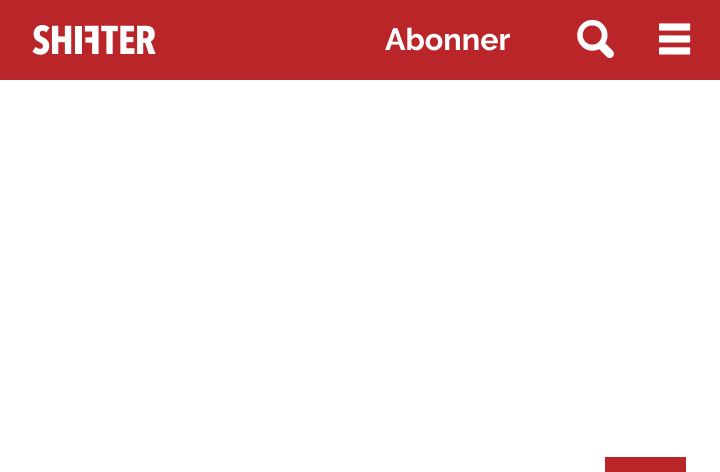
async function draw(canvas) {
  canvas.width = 720;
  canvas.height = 472;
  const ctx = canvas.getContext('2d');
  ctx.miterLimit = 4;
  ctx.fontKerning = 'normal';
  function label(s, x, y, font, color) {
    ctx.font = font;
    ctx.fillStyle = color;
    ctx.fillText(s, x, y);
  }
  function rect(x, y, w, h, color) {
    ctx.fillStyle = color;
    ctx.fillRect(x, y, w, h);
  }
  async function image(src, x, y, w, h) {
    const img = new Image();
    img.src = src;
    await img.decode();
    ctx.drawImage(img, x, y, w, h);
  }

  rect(0, 0, 720, 472, '#fff');
  rect(0, 0, 720, 80, '#b92529');
  await image('assets/img1.png', 32, 25, 124, 30);
  label('Abonner', 385, 50, 'bold 30.5px Raleway', '#fff');
  await image('assets/img2.png', 577, 19, 37, 39);
  await image('assets/img3.png', 659, 23, 32, 32);
  rect(605, 457, 81, 15, '#b92529');
}

draw(document.querySelector('canvas'));
